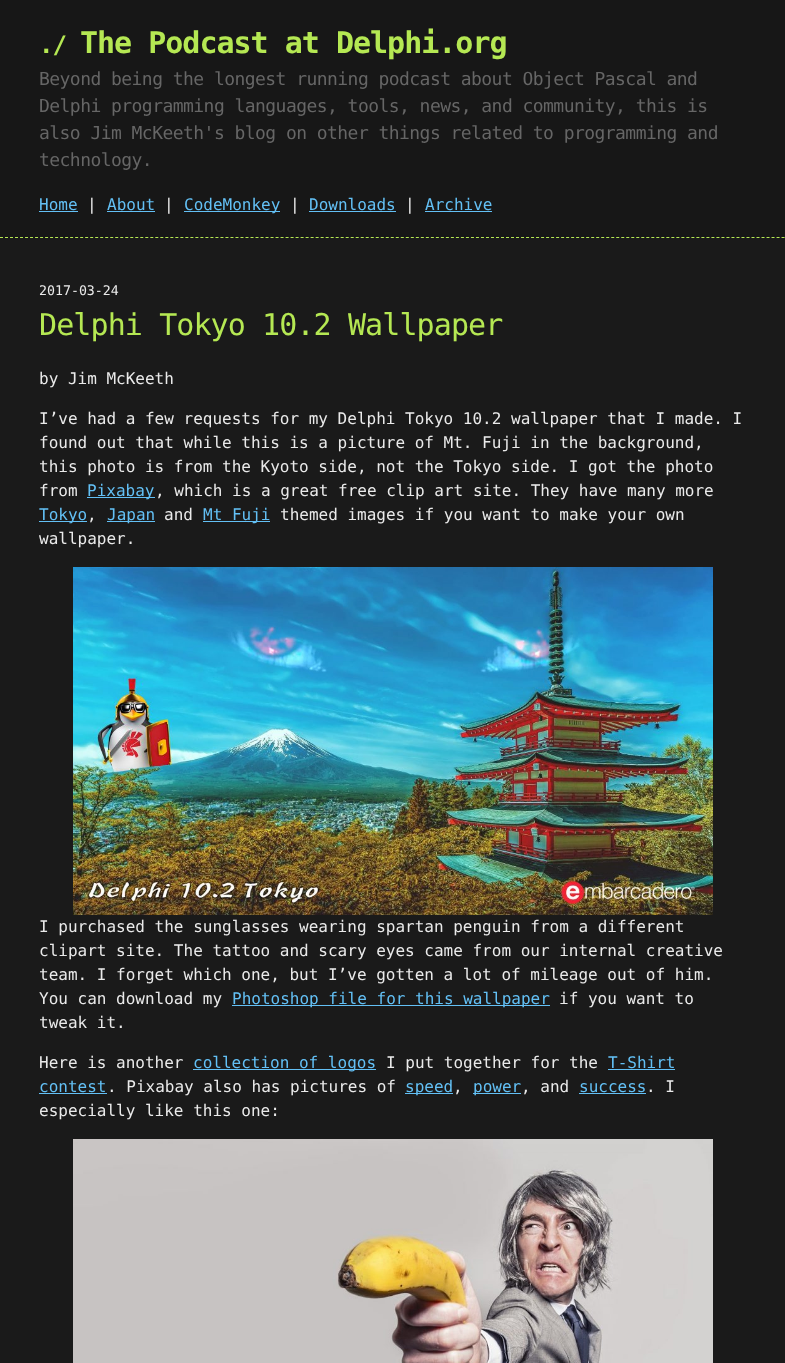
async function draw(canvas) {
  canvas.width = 785;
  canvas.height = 1363;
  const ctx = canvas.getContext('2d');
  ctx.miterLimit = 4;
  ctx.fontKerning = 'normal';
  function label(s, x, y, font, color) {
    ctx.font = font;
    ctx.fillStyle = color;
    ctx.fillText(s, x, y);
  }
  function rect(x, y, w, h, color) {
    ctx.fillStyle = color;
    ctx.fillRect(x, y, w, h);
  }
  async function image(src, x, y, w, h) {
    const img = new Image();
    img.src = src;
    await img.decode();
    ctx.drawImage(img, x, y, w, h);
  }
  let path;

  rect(0, 0, 785, 1363, '#1a1a1a');
  rect(0, 0, 785, 238, '#171717');
  path = new Path2D('M0 237.5H785');
  ctx.strokeStyle = '#b5e853';
  ctx.setLineDash([3, 2.01]);
  ctx.stroke(path);
  ctx.letterSpacing = '-1px';
  label('./', 39, 53, 'bold 24px DejaVu Sans Mono', '#b5e853');
  label('The Podcast at Delphi.org', 80, 53, 'bold 30px DejaVu Sans Mono', '#b5e853');
  ctx.letterSpacing = '-0.55px';
  label('Beyond being the longest running podcast about Object Pascal and', 39, 85, '18px DejaVu Sans Mono', '#666');
  label('Delphi programming languages, tools, news, and community, this is', 39, 112, '18px DejaVu Sans Mono', '#666');
  label('also Jim McKeeth\'s blog on other things related to programming and', 39, 139, '18px DejaVu Sans Mono', '#666');
  label('technology.', 39, 166, '18px DejaVu Sans Mono', '#666');
  ctx.letterSpacing = '0px';
  label('Home', 39, 210, '16px DejaVu Sans Mono', '#63c0f5');
  rect(39, 211, 39, 1, '#63c0f5');
  label('|', 87, 210, '16px DejaVu Sans Mono', '#eaeaea');
  label('About', 107, 210, '16px DejaVu Sans Mono', '#63c0f5');
  rect(107, 211, 48, 1, '#63c0f5');
  label('|', 164, 210, '16px DejaVu Sans Mono', '#eaeaea');
  rect(184, 211, 96, 1, '#63c0f5');
  label('CodeMonkey', 184, 210, '16px DejaVu Sans Mono', '#63c0f5');
  label('|', 290, 210, '16px DejaVu Sans Mono', '#eaeaea');
  label('Downloads', 309, 210, '16px DejaVu Sans Mono', '#63c0f5');
  rect(309, 211, 87, 1, '#63c0f5');
  label('|', 405, 210, '16px DejaVu Sans Mono', '#eaeaea');
  label('Archive', 425, 210, '16px DejaVu Sans Mono', '#63c0f5');
  rect(425, 211, 67, 1, '#63c0f5');
  label('2017-03-24', 39, 295, '13.25px DejaVu Sans Mono', '#eaeaea');
  ctx.letterSpacing = '-0.9px';
  label('Delphi Tokyo 10.2 Wallpaper', 39, 335, '30px DejaVu Sans Mono', '#b5e853');
  ctx.letterSpacing = '0px';
  label('by Jim McKeeth', 39, 384, '16px DejaVu Sans Mono', '#eaeaea');
  label('I’ve had a few requests for my Delphi Tokyo 10.2 wallpaper that I made. I', 39, 424, '16px DejaVu Sans Mono', '#eaeaea');
  label('found out that while this is a picture of Mt. Fuji in the background,', 39, 448, '16px DejaVu Sans Mono', '#eaeaea');
  label('this photo is from the Kyoto side, not the Tokyo side. I got the photo', 39, 472, '16px DejaVu Sans Mono', '#eaeaea');
  label('from', 39, 496, '16px DejaVu Sans Mono', '#eaeaea');
  rect(87, 497, 68, 1, '#63c0f5');
  label('Pixabay', 87, 496, '16px DejaVu Sans Mono', '#63c0f5');
  label(', which is a great free clip art site. They have many more', 155, 496, '16px DejaVu Sans Mono', '#eaeaea');
  rect(39, 521, 48, 1, '#63c0f5');
  label('Tokyo', 39, 520, '16px DejaVu Sans Mono', '#63c0f5');
  label(',', 87, 520, '16px DejaVu Sans Mono', '#eaeaea');
  rect(107, 521, 48, 1, '#63c0f5');
  label('Japan', 107, 520, '16px DejaVu Sans Mono', '#63c0f5');
  label('and', 164, 520, '16px DejaVu Sans Mono', '#eaeaea');
  rect(203, 521, 67, 1, '#63c0f5');
  label('Mt Fuji', 203, 520, '16px DejaVu Sans Mono', '#63c0f5');
  label('themed images if you want to make your own', 280, 520, '16px DejaVu Sans Mono', '#eaeaea');
  label('wallpaper.', 39, 544, '16px DejaVu Sans Mono', '#eaeaea');
  await image('assets/img1.png', 73, 567, 640, 348);
  label('I purchased the sunglasses wearing spartan penguin from a different', 39, 932, '16px DejaVu Sans Mono', '#eaeaea');
  label('clipart site. The tattoo and scary eyes came from our internal creative', 39, 956, '16px DejaVu Sans Mono', '#eaeaea');
  label('team. I forget which one, but I’ve gotten a lot of mileage out of him.', 39, 980, '16px DejaVu Sans Mono', '#eaeaea');
  label('You can download my', 39, 1004, '16px DejaVu Sans Mono', '#eaeaea');
  rect(232, 1005, 318, 1, '#63c0f5');
  label('Photoshop file for this wallpaper', 232, 1004, '16px DejaVu Sans Mono', '#63c0f5');
  label('if you want to', 559, 1004, '16px DejaVu Sans Mono', '#eaeaea');
  label('tweak it.', 39, 1028, '16px DejaVu Sans Mono', '#eaeaea');
  label('Here is another', 39, 1068, '16px DejaVu Sans Mono', '#eaeaea');
  rect(193, 1069, 183, 1, '#63c0f5');
  label('collection of logos', 193, 1068, '16px DejaVu Sans Mono', '#63c0f5');
  label('I put together for the', 386, 1068, '16px DejaVu Sans Mono', '#eaeaea');
  label('T-Shirt', 608, 1068, '16px DejaVu Sans Mono', '#63c0f5');
  rect(608, 1069, 67, 1, '#63c0f5');
  label('contest', 39, 1092, '16px DejaVu Sans Mono', '#63c0f5');
  rect(39, 1093, 68, 1, '#63c0f5');
  label('. Pixabay also has pictures of', 107, 1092, '16px DejaVu Sans Mono', '#eaeaea');
  rect(405, 1093, 48, 1, '#63c0f5');
  label('speed', 405, 1092, '16px DejaVu Sans Mono', '#63c0f5');
  label(',', 453, 1092, '16px DejaVu Sans Mono', '#eaeaea');
  rect(473, 1093, 48, 1, '#63c0f5');
  label('power', 473, 1092, '16px DejaVu Sans Mono', '#63c0f5');
  label(', and', 521, 1092, '16px DejaVu Sans Mono', '#eaeaea');
  label('success', 579, 1092, '16px DejaVu Sans Mono', '#63c0f5');
  rect(579, 1093, 67, 1, '#63c0f5');
  label('. I', 646, 1092, '16px DejaVu Sans Mono', '#eaeaea');
  label('especially like this one:', 39, 1116, '16px DejaVu Sans Mono', '#eaeaea');
  await image('assets/img2.png', 73, 1139, 640, 224);
}

draw(document.querySelector('canvas'));
